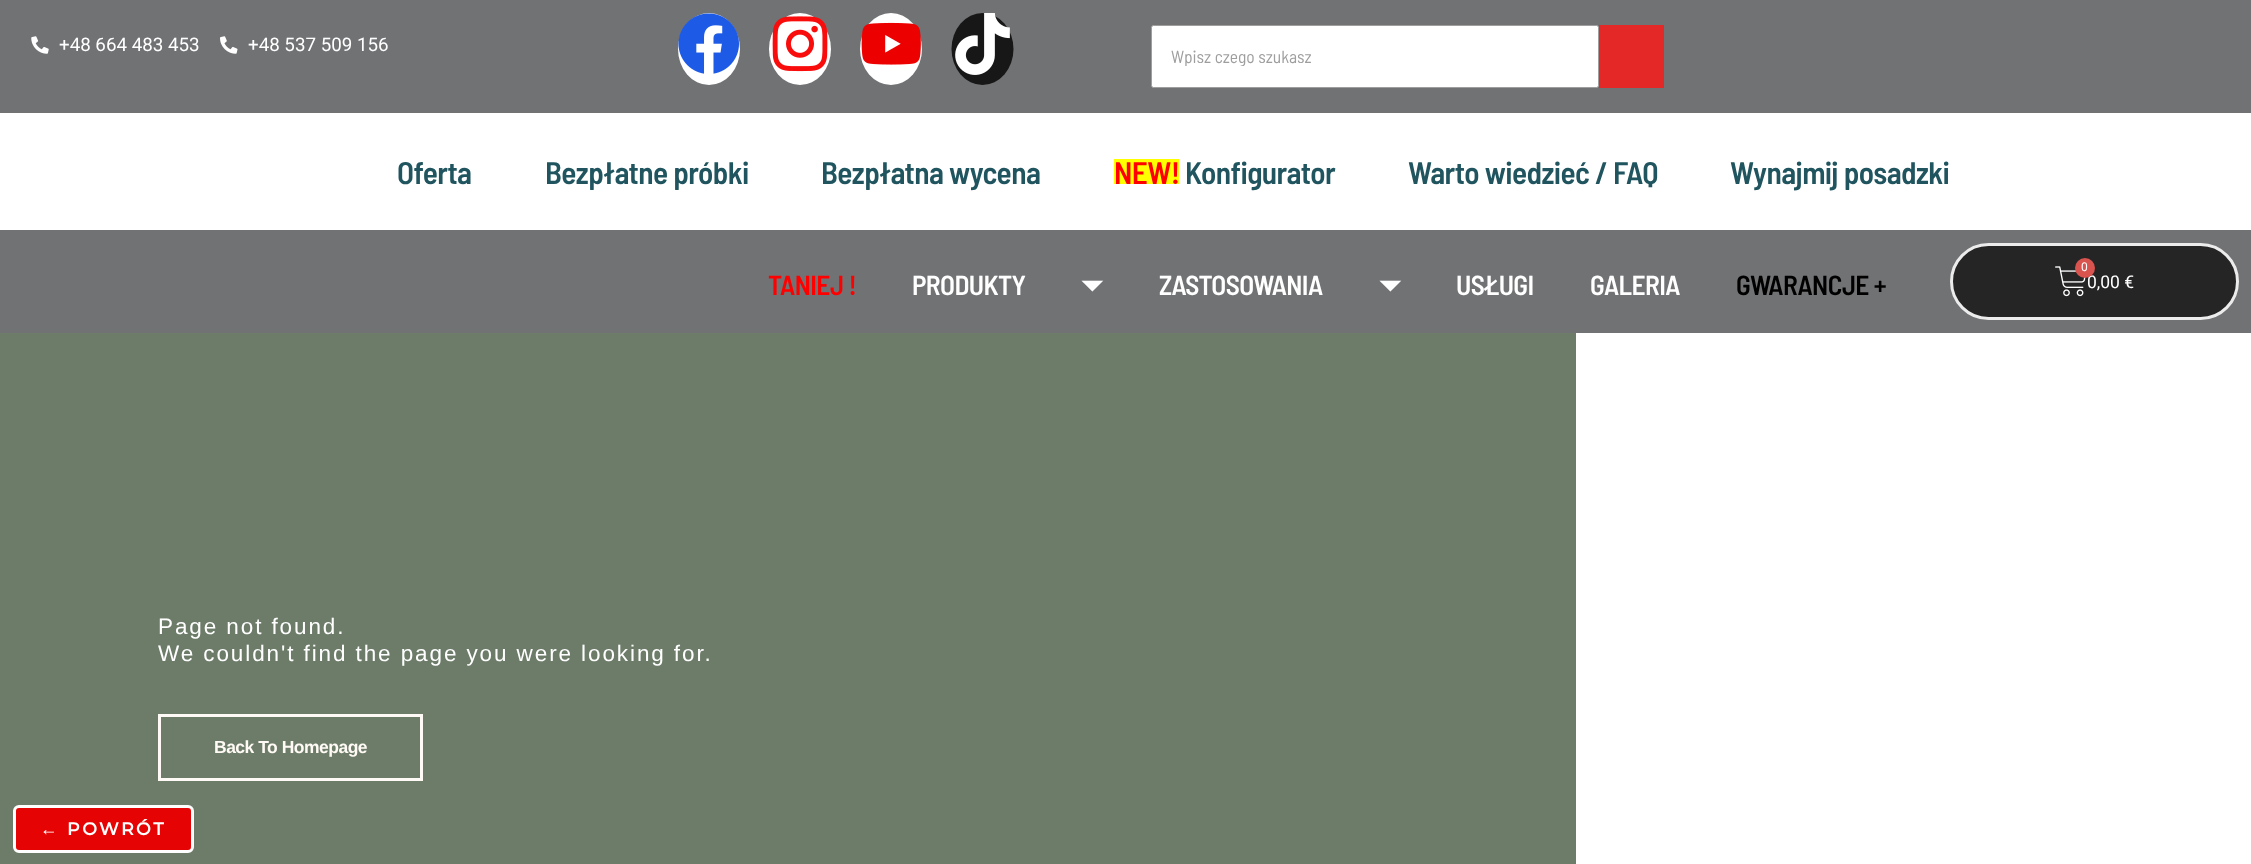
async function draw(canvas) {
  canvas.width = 2251;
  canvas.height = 864;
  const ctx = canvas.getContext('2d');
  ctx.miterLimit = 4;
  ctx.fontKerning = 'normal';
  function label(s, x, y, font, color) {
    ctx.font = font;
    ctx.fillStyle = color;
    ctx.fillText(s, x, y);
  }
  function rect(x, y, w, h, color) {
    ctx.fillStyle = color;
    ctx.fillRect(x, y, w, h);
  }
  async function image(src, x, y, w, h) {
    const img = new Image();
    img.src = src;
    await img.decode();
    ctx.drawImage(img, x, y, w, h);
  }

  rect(0, 0, 2251, 864, '#fff');
  rect(0, 0, 2251, 113, '#717274');
  await image('assets/img1.png', 31, 36, 18, 18);
  label('+48 664 483 453', 59, 51, '18.75px Roboto', '#fff');
  await image('assets/img2.png', 220, 36, 18, 18);
  label('+48 537 509 156', 248, 51, '18.75px Roboto', '#fff');
  ctx.beginPath();
  ctx.ellipse(709, 49, 31, 36, 0, 0, 2 * Math.PI);
  ctx.fill();
  await image('assets/img3.png', 678, 13, 61, 61);
  ctx.beginPath();
  ctx.ellipse(800, 49, 31, 36, 0, 0, 2 * Math.PI);
  ctx.fill();
  await image('assets/img4.png', 772, 16, 56, 56);
  ctx.beginPath();
  ctx.ellipse(891, 49, 31, 36, 0, 0, 2 * Math.PI);
  ctx.fill();
  await image('assets/img5.png', 861, 22, 60, 43);
  ctx.fillStyle = '#171717';
  ctx.beginPath();
  ctx.ellipse(982.5, 49, 31, 36, 0, 0, 2 * Math.PI);
  ctx.fill();
  await image('assets/img6.png', 955, 13, 55, 62);
  ctx.fillStyle = '#fff';
  ctx.beginPath();
  ctx.roundRect(1151.5, 25.5, 447, 62, 2);
  ctx.fill();
  ctx.strokeStyle = '#9e9e9e';
  ctx.stroke();
  ctx.save();
  ctx.beginPath();
  ctx.rect(1171, 45, 403, 21);
  ctx.clip();
  label('Wpisz czego szukasz', 1171, 63, '17.5px Barlow Semi Condensed', '#9e9e9e');
  ctx.restore();
  rect(1599, 25, 65, 63, '#e42828');
  ctx.letterSpacing = '-0.6px';
  label('Oferta', 397, 184, '600 31.25px Barlow Semi Condensed', '#20555f');
  label('Bezpłatne próbki', 545, 184, '600 31.25px Barlow Semi Condensed', '#20555f');
  label('Bezpłatna wycena', 821, 184, '600 31.25px Barlow Semi Condensed', '#20555f');
  rect(1114, 159, 65, 25, '#ff0');
  label('NEW!', 1114, 184, '600 31.25px Barlow Semi Condensed', '#f00');
  label('Konfigurator', 1185, 184, '600 31.25px Barlow Semi Condensed', '#20555f');
  label('Warto wiedzieć / FAQ', 1408, 184, '600 31.25px Barlow Semi Condensed', '#20555f');
  label('Wynajmij posadzki', 1730, 184, '600 31.25px Barlow Semi Condensed', '#20555f');
  rect(0, 230, 2251, 103, '#717274');
  label('TANIEJ !', 768, 295, '600 27.5px Barlow Semi Condensed', '#f00');
  label('PRODUKTY', 912, 295, '600 27.5px Barlow Semi Condensed', '#fff');
  label('⏷', 1081, 295, 'bold 27.5px FreeSans', '#fff');
  label('ZASTOSOWANIA', 1159, 295, '600 27.5px Barlow Semi Condensed', '#fff');
  label('⏷', 1379, 295, 'bold 27.5px FreeSans', '#fff');
  label('USŁUGI', 1456, 295, '600 27.5px Barlow Semi Condensed', '#fff');
  label('GALERIA', 1590, 295, '600 27.5px Barlow Semi Condensed', '#fff');
  label('GWARANCJE +', 1736, 295, '600 27.5px Barlow Semi Condensed', '#000');
  ctx.fillStyle = '#252525';
  ctx.beginPath();
  ctx.roundRect(1951.5, 244.5, 286, 74, 37);
  ctx.fill();
  ctx.strokeStyle = '#ececec';
  ctx.lineWidth = 3;
  ctx.stroke();
  await image('assets/img7.png', 2055, 266, 31, 31);
  ctx.letterSpacing = '0px';
  label('0,00 €', 2087, 288, '17.5px Roboto', '#fff');
  ctx.fillStyle = '#d9534f';
  ctx.beginPath();
  ctx.arc(2085, 268, 10, 0, 2 * Math.PI);
  ctx.fill();
  label('0', 2081, 271, '12px Roboto', '#fff');
  rect(0, 333, 1576, 531, '#6c7c69');
  ctx.fillStyle = '#e60303';
  ctx.beginPath();
  ctx.roundRect(14.5, 806.5, 178, 45, 4.5);
  ctx.fill();
  ctx.strokeStyle = '#fff';
  ctx.stroke();
  ctx.letterSpacing = '2.5px';
  label('←', 40, 835, 'bold 17.5px Liberation Sans', '#fff');
  label('POWRÓT', 67, 835, 'bold 17.5px Montserrat', '#fff');
  ctx.letterSpacing = '1.9px';
  label('Page not found.', 158, 634, '22.5px Liberation Sans', '#fff');
  label('We couldn\'t find the page you were looking for.', 158, 661, '22.5px Liberation Sans', '#fff');
  ctx.strokeStyle = '#fffaf5';
  ctx.strokeRect(159.5, 715.5, 262, 64);
  ctx.letterSpacing = '-0.5px';
  label('Back To Homepage', 214, 753, 'bold 17.5px Liberation Sans', '#fffaf5');
}

draw(document.querySelector('canvas'));
